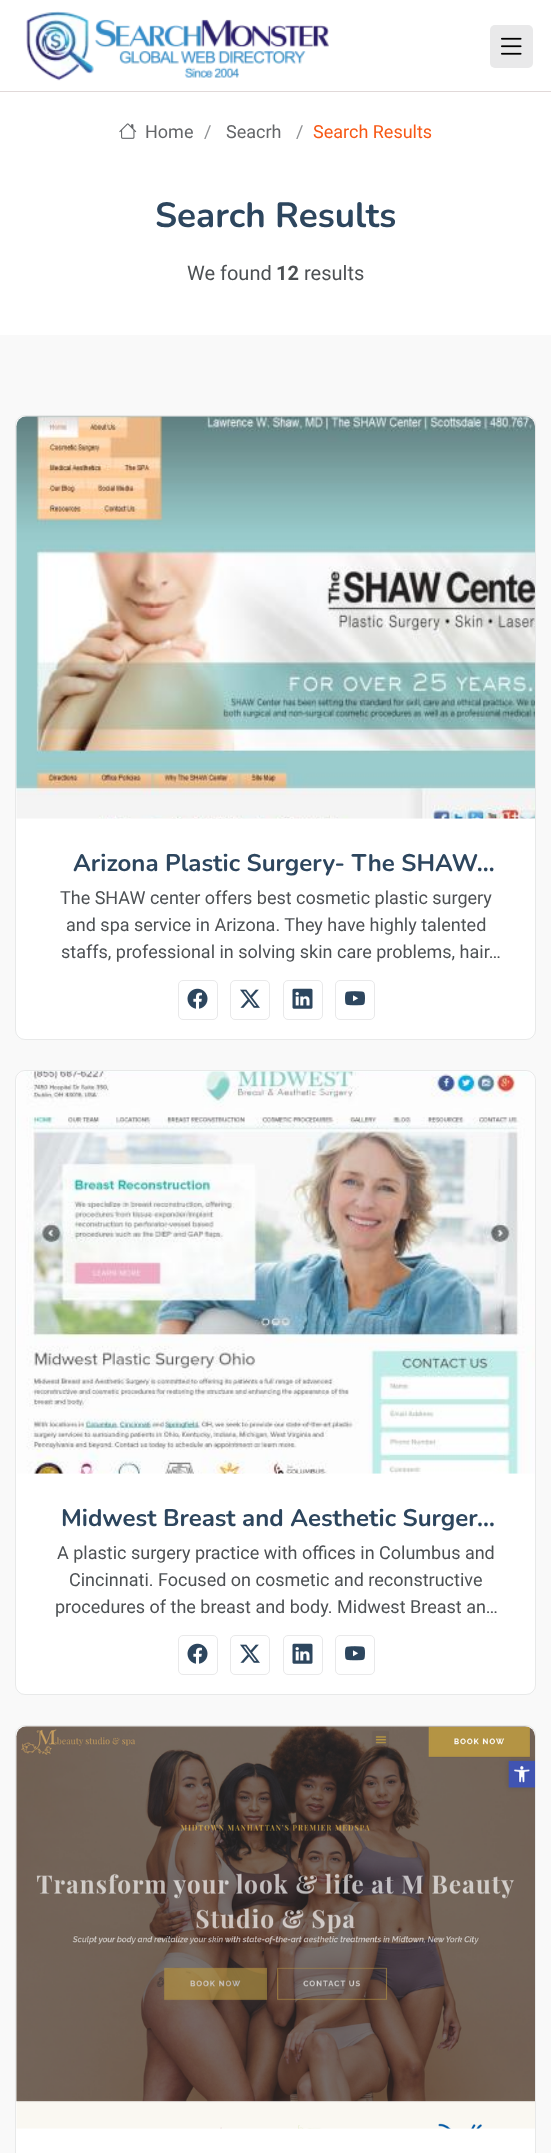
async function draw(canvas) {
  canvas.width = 551;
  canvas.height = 2153;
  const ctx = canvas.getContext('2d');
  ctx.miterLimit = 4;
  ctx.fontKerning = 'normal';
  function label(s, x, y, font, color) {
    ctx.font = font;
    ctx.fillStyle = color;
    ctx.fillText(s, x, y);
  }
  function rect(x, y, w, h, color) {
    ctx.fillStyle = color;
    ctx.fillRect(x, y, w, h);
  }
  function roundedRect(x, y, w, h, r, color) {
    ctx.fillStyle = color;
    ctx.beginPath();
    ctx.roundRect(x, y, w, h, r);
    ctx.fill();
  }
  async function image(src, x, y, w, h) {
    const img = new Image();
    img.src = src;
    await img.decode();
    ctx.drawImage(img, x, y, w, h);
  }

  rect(0, 0, 551, 2153, '#fff');
  rect(0, 91, 551, 1, '#e1d9d9');
  await image('assets/img1.png', 26, 11, 303, 70);
  roundedRect(490, 25, 43, 43, 5, '#e9e9ea');
  await image('assets/img2.png', 501, 37, 21, 18);
  await image('assets/img3.png', 119, 123, 18, 16);
  label('Home', 145, 138, '18px Roboto', '#646669');
  label('/', 204, 138, '18px Roboto', '#909294');
  label('Seacrh', 226, 138, '18px Roboto', '#646669');
  label('/', 296, 138, '18px Roboto', '#909294');
  label('Search Results', 313, 138, '18px Roboto', '#f75815');
  label('Search Results', 155, 227, 'bold 35px Nunito', '#2d465e');
  label('We found', 187, 280, '20px Roboto', '#4d5154');
  label('12', 276, 280, 'bold 20px Roboto', '#4d5154');
  label('results', 304, 280, '20px Roboto', '#4d5154');
  rect(0, 335, 551, 1818, '#f9f9f9');
  roundedRect(15, 415, 521, 625, 10, '#fff');
  ctx.beginPath();
  ctx.roundRect(15.5, 415.5, 520, 624, 9.5);
  ctx.strokeStyle = '#2125291a';
  ctx.stroke();
  await image('assets/img4.png', 16, 416, 519, 403);
  label('Arizona Plastic Surgery- The SHAW…', 73, 871, 'bold 24px Nunito', '#2d465e');
  label('The SHAW center offers best cosmetic plastic surgery', 60, 904, '18px Roboto', '#4d5154');
  label('and spa service in Arizona. They have highly talented', 66, 931, '18px Roboto', '#4d5154');
  label('staffs, professional in solving skin care problems, hair…', 61, 958, '18px Roboto', '#4d5154');
  ctx.beginPath();
  ctx.roundRect(178.5, 980.5, 39, 39, 4.5);
  ctx.strokeStyle = '#e9e9ea';
  ctx.stroke();
  await image('assets/img5.png', 187, 988, 21, 21);
  ctx.beginPath();
  ctx.roundRect(230.5, 980.5, 39, 39, 4.5);
  ctx.stroke();
  await image('assets/img6.png', 240, 989, 20, 19);
  ctx.beginPath();
  ctx.roundRect(283.5, 980.5, 39, 39, 4.5);
  ctx.stroke();
  await image('assets/img7.png', 292, 988, 21, 21);
  ctx.beginPath();
  ctx.roundRect(335.5, 980.5, 39, 39, 4.5);
  ctx.stroke();
  await image('assets/img8.png', 345, 991, 20, 15);
  roundedRect(15, 1070, 521, 625, 10, '#fff');
  ctx.beginPath();
  ctx.roundRect(15.5, 1070.5, 520, 624, 9.5);
  ctx.strokeStyle = '#2125291a';
  ctx.stroke();
  await image('assets/img9.png', 17, 1071, 518, 403);
  label('Midwest Breast and Aesthetic Surger…', 61, 1526, 'bold 24px Nunito', '#2d465e');
  label('A plastic surgery practice with offices in Columbus and', 57, 1559, '18px Roboto', '#4d5154');
  label('Cincinnati. Focused on cosmetic and reconstructive', 69, 1586, '18px Roboto', '#4d5154');
  label('procedures of the breast and body. Midwest Breast an…', 55, 1613, '18px Roboto', '#4d5154');
  ctx.beginPath();
  ctx.roundRect(178.5, 1635.5, 39, 39, 4.5);
  ctx.strokeStyle = '#e9e9ea';
  ctx.stroke();
  await image('assets/img5.png', 187, 1643, 21, 21);
  ctx.beginPath();
  ctx.roundRect(230.5, 1635.5, 39, 39, 4.5);
  ctx.stroke();
  await image('assets/img6.png', 240, 1644, 20, 19);
  ctx.beginPath();
  ctx.roundRect(283.5, 1635.5, 39, 39, 4.5);
  ctx.stroke();
  await image('assets/img7.png', 292, 1643, 21, 21);
  ctx.beginPath();
  ctx.roundRect(335.5, 1635.5, 39, 39, 4.5);
  ctx.stroke();
  await image('assets/img8.png', 345, 1646, 20, 15);
  roundedRect(15, 1725, 521, 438, 10, '#fff');
  ctx.beginPath();
  ctx.roundRect(15.5, 1725.5, 520, 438, 9.5);
  ctx.strokeStyle = '#2125291a';
  ctx.stroke();
  await image('assets/img10.png', 16, 1726, 519, 403);
}

draw(document.querySelector('canvas'));
